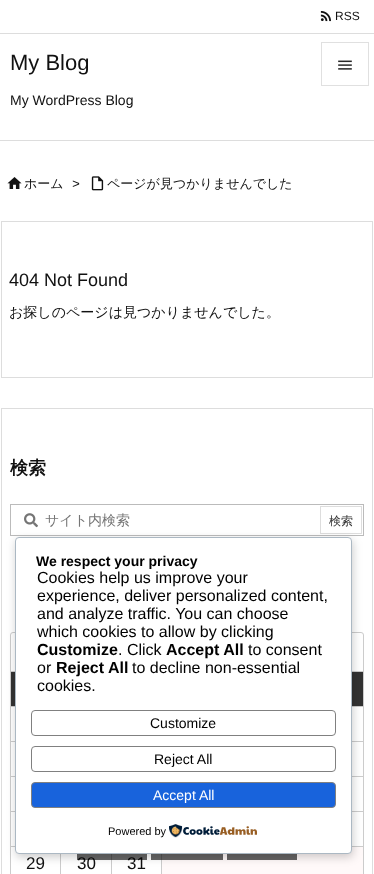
async function draw(canvas) {
  canvas.width = 374;
  canvas.height = 874;
  const ctx = canvas.getContext('2d');
  ctx.miterLimit = 4;
  ctx.fontKerning = 'normal';
  function label(s, x, y, font, color) {
    ctx.font = font;
    ctx.fillStyle = color;
    ctx.fillText(s, x, y);
  }
  function rect(x, y, w, h, color) {
    ctx.fillStyle = color;
    ctx.fillRect(x, y, w, h);
  }
  async function image(src, x, y, w, h) {
    const img = new Image();
    img.src = src;
    await img.decode();
    ctx.drawImage(img, x, y, w, h);
  }

  rect(0, 0, 374, 874, '#fff');
  rect(151, 854, 10, 6, '#666');
  rect(0, 33, 374, 1, '#ddd');
  await image('assets/img1.png', 320, 11, 11, 11);
  label('RSS', 335, 20, '12px Liberation Sans', '#111');
  rect(0, 140, 374, 1, '#ddd');
  ctx.strokeStyle = '#e0e0e0';
  ctx.strokeRect(321.5, 42.5, 47, 43);
  await image('assets/img2.png', 338, 60, 14, 10);
  label('My Blog', 10, 70, '22px Liberation Sans', '#111');
  label('My WordPress Blog', 10, 105, '14px Liberation Sans', '#111');
  await image('assets/img3.png', 7, 177, 15, 12);
  label('ホーム', 24, 188, '500 13px WenQuanYi Zen Hei', '#111');
  label('>', 72, 188, 'italic 13px Liberation Sans', '#111');
  await image('assets/img4.png', 91, 176, 13, 15);
  label('ページが見つかりませんでした', 107, 188, '500 13px WenQuanYi Zen Hei', '#111');
  ctx.strokeStyle = '#ddd';
  ctx.strokeRect(1.5, 221.5, 371, 156);
  label('404 Not Found', 9, 286, '18px Liberation Sans', '#111');
  label('お探しのページは見つかりませんでした。', 9, 317, '500 14px WenQuanYi Zen Hei', '#111');
  ctx.strokeRect(1.5, 408.5, 371, 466);
  label('検索', 10, 474, 'bold 18px WenQuanYi Zen Hei', '#111');
  ctx.strokeStyle = '#bbb';
  ctx.strokeRect(10.5, 504.5, 353, 31);
  await image('assets/img5.png', 24, 513, 14, 15);
  label('サイト内検索', 45, 525, '500 14px WenQuanYi Zen Hei', '#757575');
  ctx.strokeStyle = '#ddd';
  ctx.strokeRect(320.5, 506.5, 41, 27);
  label('検索', 329, 525, '500 12px WenQuanYi Zen Hei', '#333');
  ctx.beginPath();
  ctx.roundRect(10.5, 632.5, 353, 39, [2.5, 2.5, 0, 0]);
  ctx.strokeStyle = '#ccc';
  ctx.stroke();
  rect(11, 672, 4, 34, '#333');
  rect(352, 672, 11, 34, '#333');
  rect(10, 706, 5, 1, '#ccc');
  rect(10, 741, 5, 1, '#ccc');
  rect(10, 776, 5, 1, '#ccc');
  rect(10, 811, 5, 1, '#ccc');
  rect(10, 846, 5, 1, '#ccc');
  rect(10, 846, 1, 28, '#ccc');
  rect(10, 811, 1, 36, '#ccc');
  rect(10, 776, 1, 36, '#ccc');
  rect(10, 741, 1, 36, '#ccc');
  rect(10, 671, 1, 71, '#ccc');
  rect(352, 706, 12, 1, '#ccc');
  rect(352, 741, 12, 1, '#ccc');
  rect(352, 776, 12, 1, '#ccc');
  rect(352, 811, 12, 1, '#ccc');
  rect(352, 846, 12, 1, '#ccc');
  rect(363, 846, 1, 28, '#ccc');
  rect(363, 811, 1, 36, '#ccc');
  rect(363, 776, 1, 36, '#ccc');
  rect(363, 741, 1, 36, '#ccc');
  rect(363, 671, 1, 71, '#ccc');
  label('29', 26, 869, '17px Liberation Sans', '#111');
  rect(60, 846, 1, 28, '#ccc');
  label('30', 77, 869, '17px Liberation Sans', '#111');
  rect(111, 846, 1, 28, '#ccc');
  label('31', 127, 869, '17px Liberation Sans', '#111');
  rect(162, 847, 201, 27, '#fff9f9');
  rect(227, 854, 70, 6, '#666464');
  rect(162, 854, 61, 6, '#666464');
  rect(161, 860, 1, 14, '#ccc');
  rect(161, 846, 1, 14, '#525252');
  rect(77, 854, 70, 6, '#00000099');
  ctx.fillStyle = '#00000033';
  ctx.filter = 'blur(5px)';
  ctx.beginPath();
  ctx.roundRect(16, 540, 337, 317, 4);
  ctx.fill();
  ctx.filter = 'none';
  ctx.fillStyle = '#fff';
  ctx.beginPath();
  ctx.roundRect(15.5, 537.5, 336, 316, 3.5);
  ctx.fill();
  ctx.strokeStyle = '#abb8c3';
  ctx.stroke();
  label('We respect your privacy', 36, 566, 'bold 14px Liberation Sans', '#000');
  label('Cookies help us improve your', 37, 583, '16px Liberation Sans', '#000');
  label('experience, deliver personalized content,', 37, 601, '16px Liberation Sans', '#000');
  label('and analyze traffic. You can choose', 37, 619, '16px Liberation Sans', '#000');
  label('which cookies to allow by clicking', 37, 637, '16px Liberation Sans', '#000');
  label('Customize', 37, 655, 'bold 16px Liberation Sans', '#000');
  label('. Click', 118, 655, '16px Liberation Sans', '#000');
  label('Accept All', 166, 655, 'bold 16px Liberation Sans', '#000');
  label('to consent', 248, 655, '16px Liberation Sans', '#000');
  label('or', 37, 673, '16px Liberation Sans', '#000');
  label('Reject All', 56, 673, 'bold 16px Liberation Sans', '#000');
  label('to decline non-essential', 132, 673, '16px Liberation Sans', '#000');
  label('cookies.', 37, 691, '16px Liberation Sans', '#000');
  ctx.beginPath();
  ctx.roundRect(31.5, 710.5, 304, 25, 3.5);
  ctx.strokeStyle = '#808080';
  ctx.stroke();
  label('Customize', 150, 728, '14px Liberation Sans', '#000');
  ctx.beginPath();
  ctx.roundRect(31.5, 746.5, 304, 25, 3.5);
  ctx.stroke();
  label('Reject All', 154, 764, '14px Liberation Sans', '#000');
  ctx.fillStyle = '#1863dc';
  ctx.beginPath();
  ctx.roundRect(31.5, 782.5, 304, 25, 3.5);
  ctx.fill();
  ctx.stroke();
  label('Accept All', 153, 800, '14px Liberation Sans', '#fff');
  label('Powered by', 108, 835, '11px Liberation Sans', '#000');
  await image('assets/img6.png', 169, 824, 88, 14);
}

draw(document.querySelector('canvas'));
